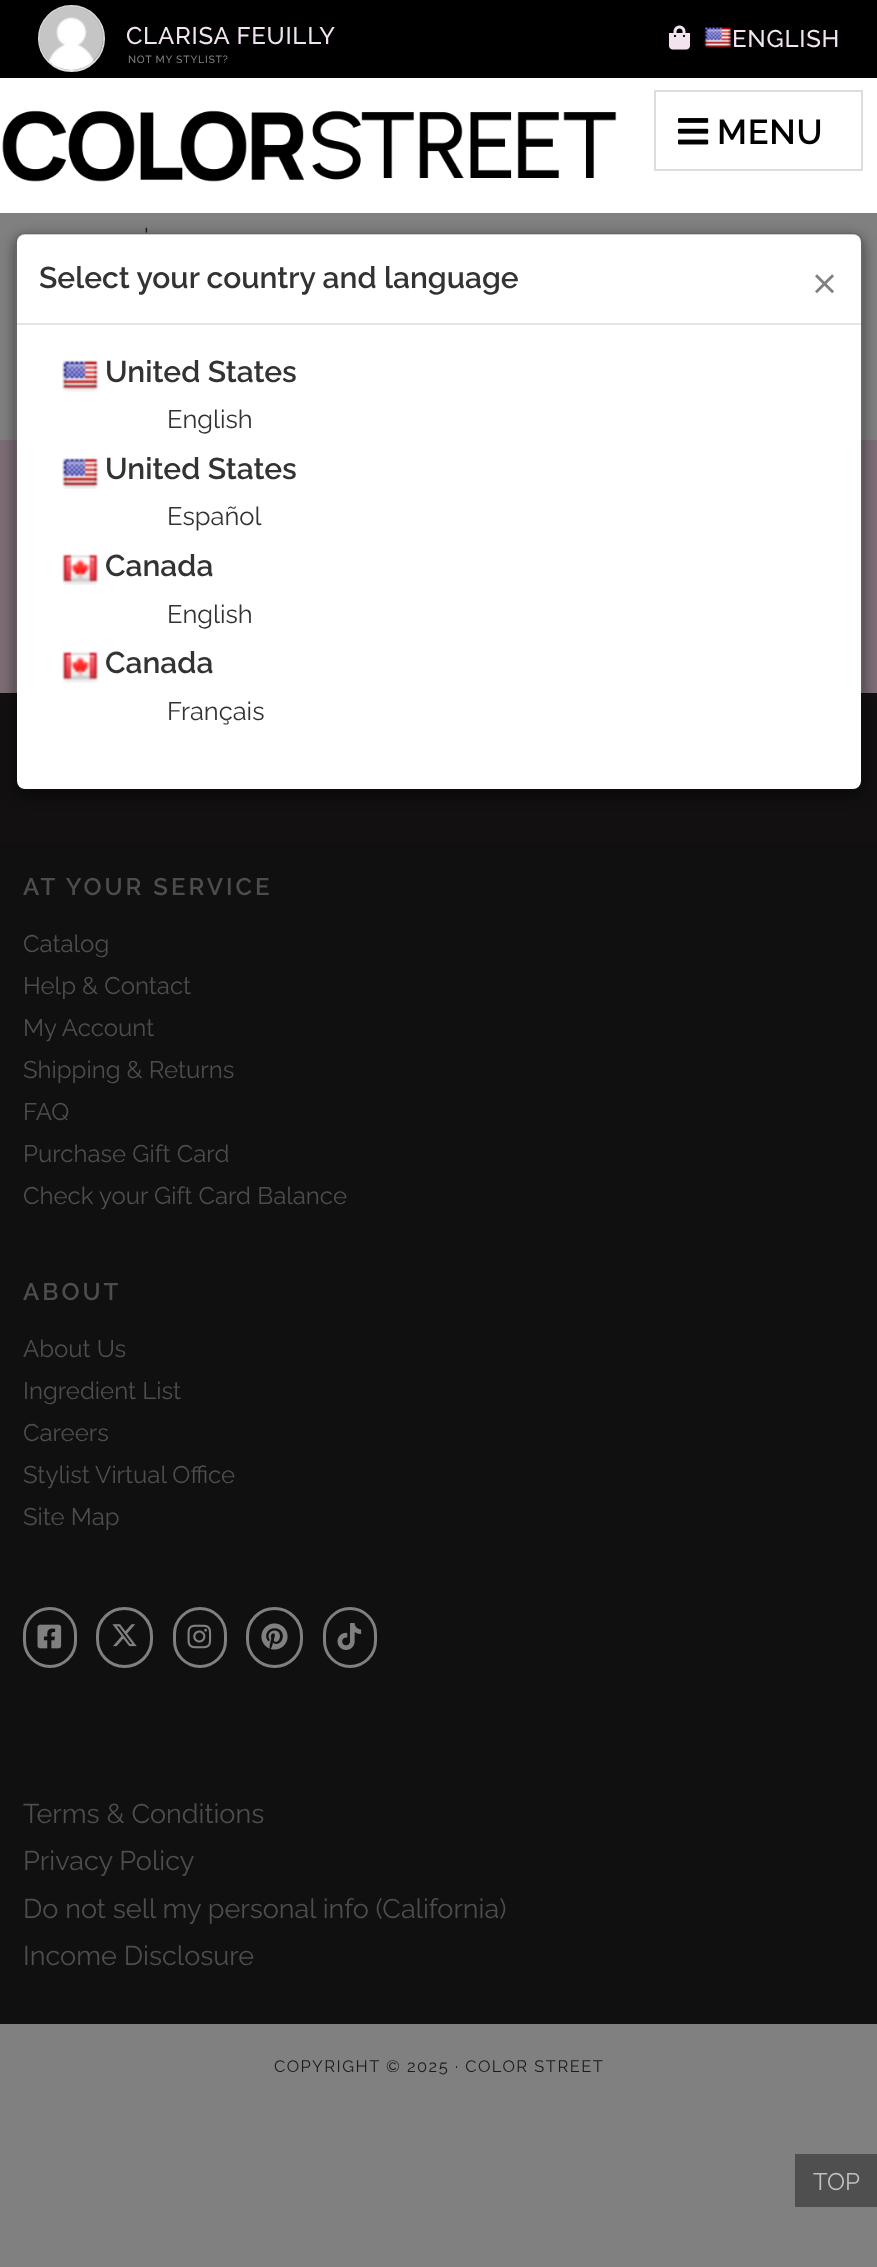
async function draw(canvas) {
  canvas.width = 877;
  canvas.height = 2267;
  const ctx = canvas.getContext('2d');
  ctx.miterLimit = 4;
  ctx.fontKerning = 'normal';
  function label(s, x, y, font, color) {
    ctx.font = font;
    ctx.fillStyle = color;
    ctx.fillText(s, x, y);
  }
  function rect(x, y, w, h, color) {
    ctx.fillStyle = color;
    ctx.fillRect(x, y, w, h);
  }
  function roundedRect(x, y, w, h, r, color) {
    ctx.fillStyle = color;
    ctx.beginPath();
    ctx.roundRect(x, y, w, h, r);
    ctx.fill();
  }
  async function image(src, x, y, w, h) {
    const img = new Image();
    img.src = src;
    await img.decode();
    ctx.drawImage(img, x, y, w, h);
  }
  let path;

  rect(0, 0, 877, 2267, '#808080');
  rect(0, 0, 877, 78, '#000');
  ctx.beginPath();
  ctx.arc(71.5, 38.5, 32.5, 0, 2 * Math.PI);
  ctx.strokeStyle = '#ddd';
  ctx.lineWidth = 2;
  ctx.stroke();
  await image('assets/img1.png', 39, 6, 65, 65);
  ctx.letterSpacing = '0.75px';
  label('CLARISA FEUILLY', 126, 44, '500 24px Raleway', '#f2e3f1');
  label('NOT MY STYLIST?', 128, 63, '500 10.5px Raleway', '#808080');
  await image('assets/img2.png', 669, 25, 21, 25);
  await image('assets/img3.png', 703, 27, 28, 21);
  label('ENGLISH', 732, 47, '500 24px Raleway', '#f2e3f1');
  rect(0, 78, 877, 135, '#fff');
  await image('assets/img4.png', 2, 110, 615, 72);
  ctx.strokeRect(655, 91, 207, 79);
  await image('assets/img5.png', 678, 118, 31, 27);
  label('MENU', 717, 144, '600 34.5px Raleway', '#000');
  ctx.letterSpacing = '0px';
  label('\'', 144, 245, '24px Raleway', '#1a1a1a');
  rect(0, 440, 877, 253, '#7e6d76');
  rect(0, 693, 877, 150, '#121010');
  ctx.save();
  path = new Path2D('M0 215H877V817H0ZM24 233H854C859 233 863 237 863 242V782C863 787 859 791 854 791H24C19 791 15 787 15 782V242C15 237 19 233 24 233Z');
  ctx.clip(path, 'evenodd');
  ctx.fillStyle = '#00000080';
  ctx.filter = 'blur(7px)';
  ctx.beginPath();
  ctx.roundRect(15, 237, 848, 558, 9);
  ctx.fill();
  ctx.filter = 'none';
  ctx.restore();
  roundedRect(17, 234, 844, 555, 8, '#fff');
  ctx.beginPath();
  ctx.roundRect(16, 234, 846, 556, 8);
  ctx.strokeStyle = '#00000033';
  ctx.stroke();
  rect(17, 323, 844, 2, '#e5e5e5');
  label('Select your country and language', 39, 288, '600 30px Raleway', '#333');
  ctx.letterSpacing = '0.75px';
  label('×', 811, 300, '300 60px Raleway', '#808080');
  await image('assets/img6.png', 62, 360, 37, 32);
  ctx.letterSpacing = '0px';
  label('United States', 105, 382, '600 30px Raleway', '#333');
  label('English', 167, 428, '25.5px Raleway', '#333');
  await image('assets/img7.png', 62, 458, 37, 31);
  label('United States', 105, 479, '600 30px Raleway', '#333');
  label('Español', 167, 525, '25.5px Raleway', '#333');
  await image('assets/img8.png', 62, 554, 37, 31);
  label('Canada', 105, 576, '600 30px Raleway', '#333');
  label('English', 167, 623, '25.5px Raleway', '#333');
  await image('assets/img9.png', 62, 651, 37, 32);
  label('Canada', 105, 673, '600 30px Raleway', '#333');
  label('Français', 167, 720, '25.5px Raleway', '#333');
  rect(0, 843, 877, 1181, '#101010');
  ctx.letterSpacing = '3px';
  label('AT YOUR SERVICE', 23, 895, '600 24px Raleway', '#4d4d4d');
  ctx.letterSpacing = '0px';
  label('Catalog', 23, 952, '24px Raleway', '#4d4d4d');
  label('Help & Contact', 23, 994, '24px Raleway', '#4d4d4d');
  label('My Account', 23, 1036, '24px Raleway', '#4d4d4d');
  label('Shipping & Returns', 23, 1078, '24px Raleway', '#4d4d4d');
  label('FAQ', 23, 1120, '24px Raleway', '#4d4d4d');
  label('Purchase Gift Card', 23, 1162, '24px Raleway', '#4d4d4d');
  label('Check your Gift Card Balance', 23, 1204, '24px Raleway', '#4d4d4d');
  ctx.letterSpacing = '3px';
  label('ABOUT', 23, 1300, '600 24px Raleway', '#4d4d4d');
  ctx.letterSpacing = '0px';
  label('About Us', 23, 1357, '24px Raleway', '#4d4d4d');
  label('Ingredient List', 23, 1399, '24px Raleway', '#4d4d4d');
  label('Careers', 23, 1441, '24px Raleway', '#4d4d4d');
  label('Stylist Virtual Office', 23, 1483, '24px Raleway', '#4d4d4d');
  label('Site Map', 23, 1525, '24px Raleway', '#4d4d4d');
  ctx.beginPath();
  ctx.roundRect(24.5, 1608.5, 51, 58, 25.5);
  ctx.strokeStyle = '#808080';
  ctx.lineWidth = 3;
  ctx.stroke();
  await image('assets/img10.png', 37, 1624, 25, 25);
  ctx.beginPath();
  ctx.roundRect(97.5, 1608.5, 54, 58, 27);
  ctx.stroke();
  ctx.beginPath();
  ctx.roundRect(174.5, 1608.5, 51, 58, 25.5);
  ctx.stroke();
  await image('assets/img11.png', 187, 1624, 25, 25);
  ctx.beginPath();
  ctx.roundRect(247.5, 1608.5, 54, 58, 27);
  ctx.stroke();
  await image('assets/img12.png', 261, 1623, 27, 27);
  ctx.beginPath();
  ctx.roundRect(324.5, 1608.5, 51, 58, 25.5);
  ctx.stroke();
  await image('assets/img13.png', 337, 1623, 25, 27);
  await image('assets/img14.png', 112, 1624, 25, 23);
  label('Terms & Conditions', 23, 1823, '27px Raleway', '#4d4d4d');
  label('Privacy Policy', 23, 1870, '27px Raleway', '#4d4d4d');
  label('Do not sell my personal info (California)', 23, 1918, '27px Raleway', '#4d4d4d');
  label('Income Disclosure', 23, 1965, '27px Raleway', '#4d4d4d');
  ctx.letterSpacing = '1.5px';
  label('COPYRIGHT © 2025 · COLOR STREET', 274, 2072, '16.5px Raleway', '#1a1a1a');
  rect(795, 2154, 82, 53, '#4f4f4f');
  ctx.letterSpacing = '0px';
  label('TOP', 813, 2190, '24px Raleway', '#bfbfbf');
}

draw(document.querySelector('canvas'));
